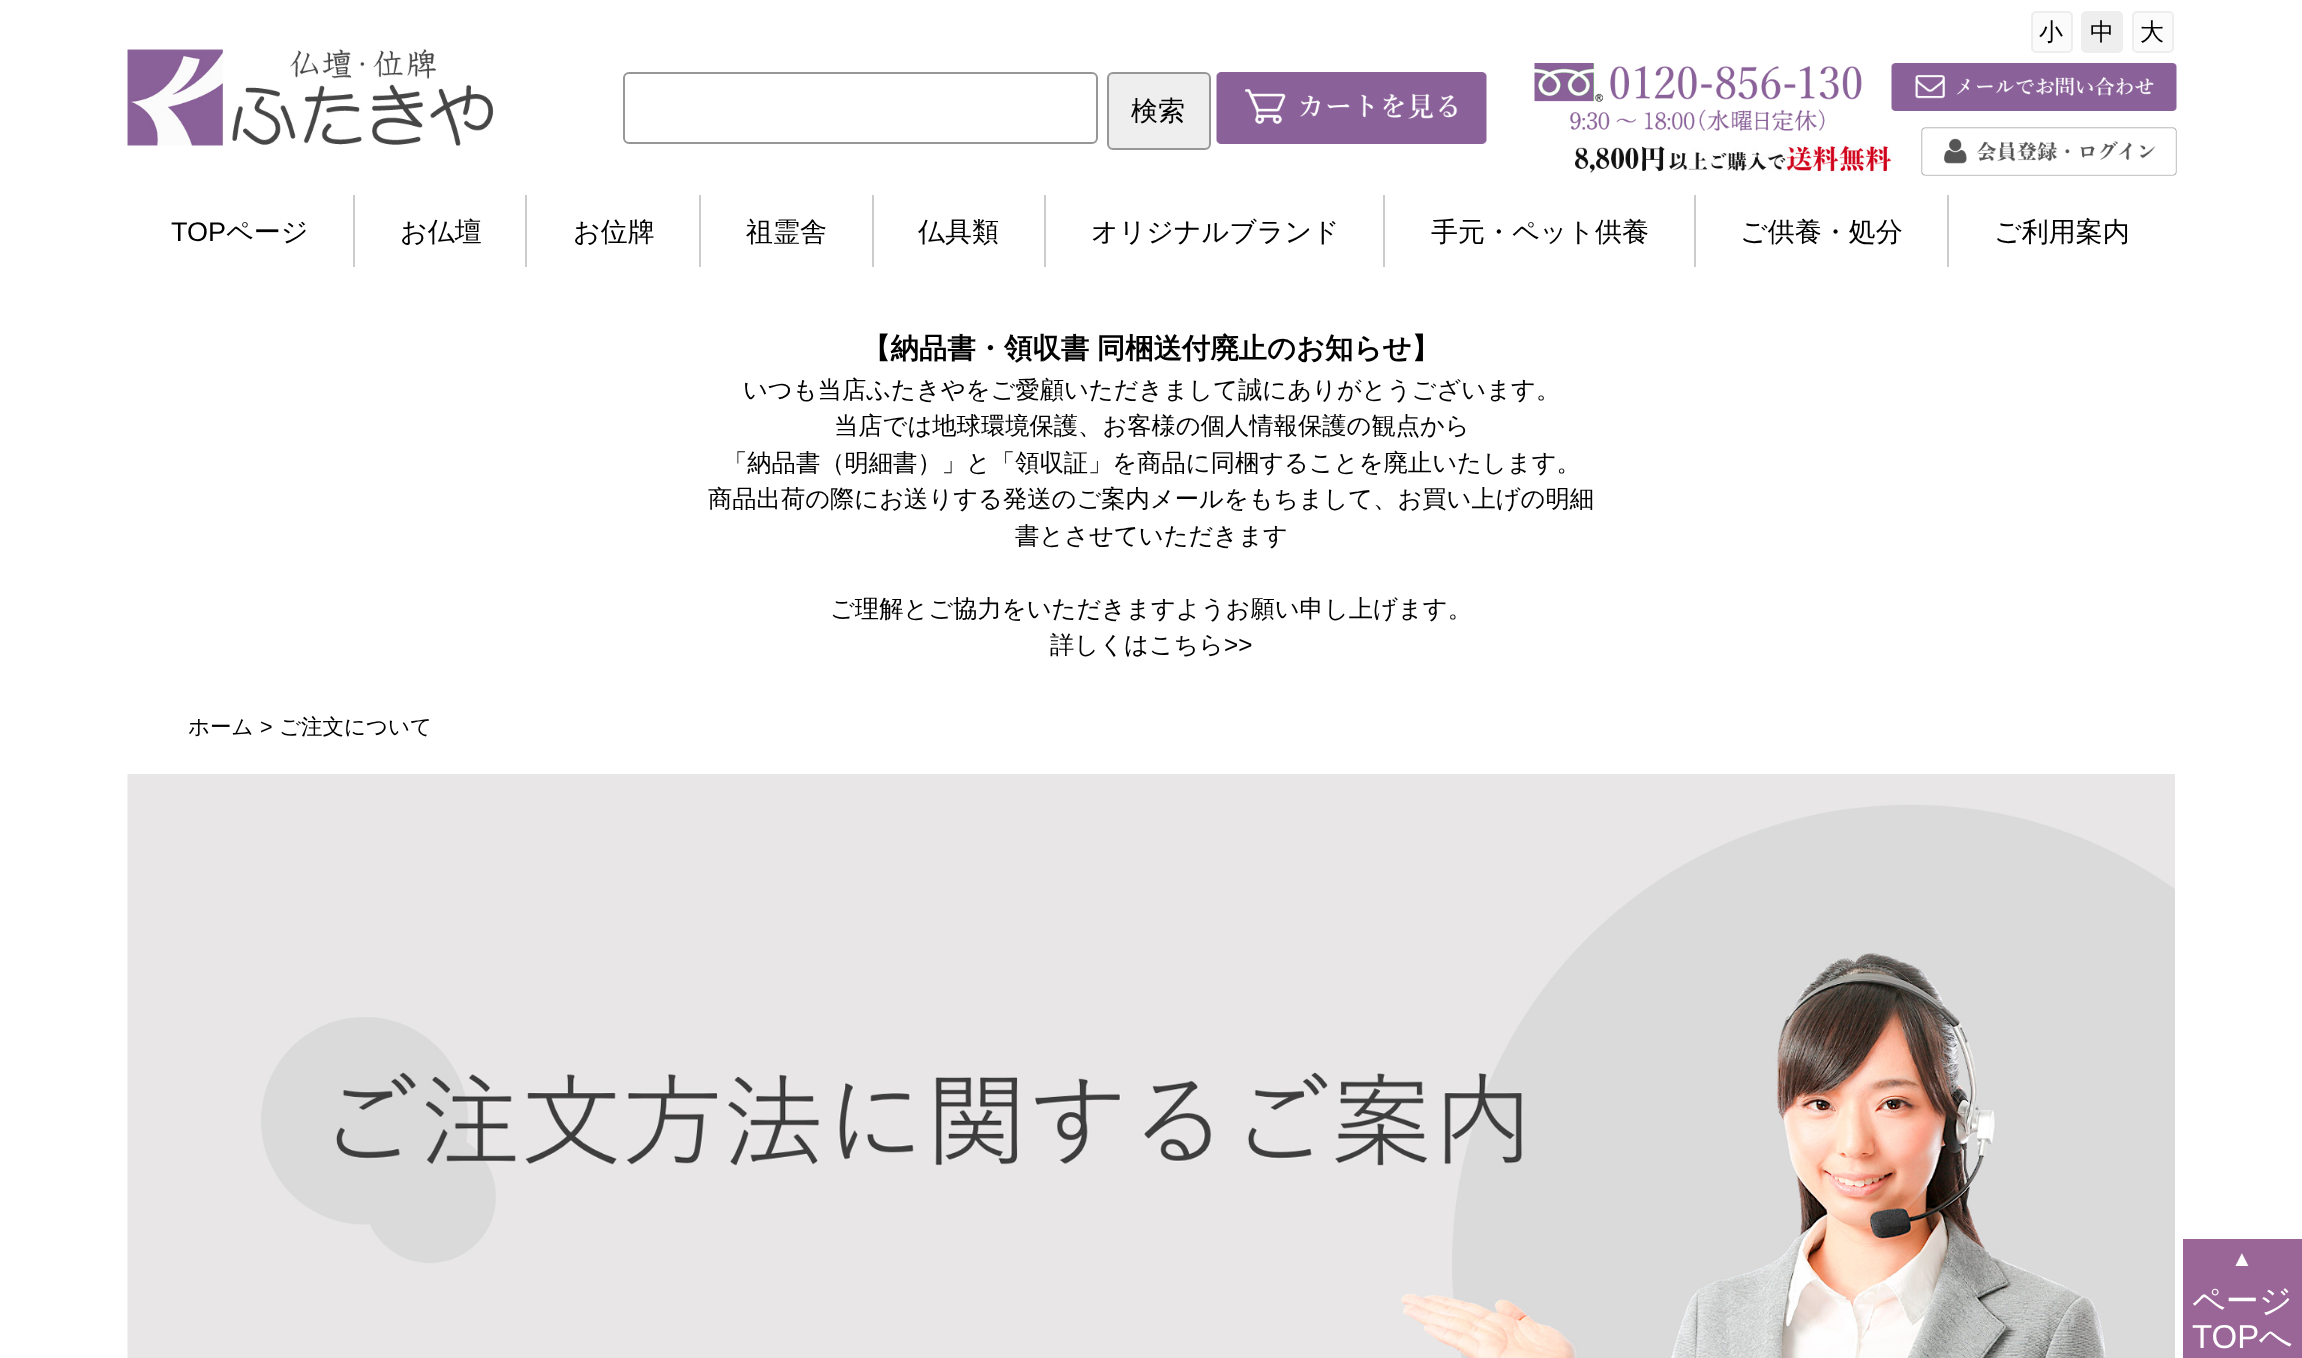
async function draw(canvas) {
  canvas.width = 2302;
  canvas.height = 1358;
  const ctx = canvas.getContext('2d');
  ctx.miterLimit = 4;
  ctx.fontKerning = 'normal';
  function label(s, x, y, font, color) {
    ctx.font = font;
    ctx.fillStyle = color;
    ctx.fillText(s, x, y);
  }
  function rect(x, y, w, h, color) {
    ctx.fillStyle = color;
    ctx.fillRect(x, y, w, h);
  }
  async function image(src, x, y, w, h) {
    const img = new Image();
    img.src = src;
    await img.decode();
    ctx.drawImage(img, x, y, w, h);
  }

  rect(0, 0, 2302, 1358, '#fff');
  ctx.fillStyle = '#fbfbfb';
  ctx.beginPath();
  ctx.roundRect(2032, 12, 40, 40, 4);
  ctx.fill();
  ctx.strokeStyle = '#eee';
  ctx.lineWidth = 2;
  ctx.stroke();
  label('小', 2039, 40, '500 24px WenQuanYi Zen Hei', '#000');
  ctx.fillStyle = '#eee';
  ctx.beginPath();
  ctx.roundRect(2082, 12, 40, 40, 4);
  ctx.fill();
  ctx.stroke();
  label('中', 2090, 40, '500 24px WenQuanYi Zen Hei', '#000');
  ctx.fillStyle = '#fbfbfb';
  ctx.beginPath();
  ctx.roundRect(2133, 12, 40, 40, 4);
  ctx.fill();
  ctx.stroke();
  label('大', 2140, 40, '500 24px WenQuanYi Zen Hei', '#000');
  await image('assets/img1.png', 127, 49, 367, 97);
  ctx.beginPath();
  ctx.roundRect(624, 73, 473, 70, 5);
  ctx.strokeStyle = '#979797';
  ctx.stroke();
  ctx.fillStyle = '#eee';
  ctx.beginPath();
  ctx.roundRect(1108, 73, 102, 76, 5);
  ctx.fill();
  ctx.stroke();
  label('検索', 1131, 120, '500 27px WenQuanYi Zen Hei', '#000');
  await image('assets/img2.png', 1216, 72, 271, 72);
  await image('assets/img3.png', 1534, 63, 328, 68);
  await image('assets/img4.png', 1891, 63, 286, 48);
  await image('assets/img5.png', 1575, 145, 317, 28);
  await image('assets/img6.png', 1921, 127, 256, 49);
  rect(353, 195, 2, 72, '#ccc');
  label('TOP', 171, 241, '27px Liberation Sans', '#000');
  label('ページ', 226, 241, '500 27px WenQuanYi Zen Hei', '#000');
  rect(525, 195, 2, 72, '#ccc');
  label('お仏壇', 400, 241, '500 27px WenQuanYi Zen Hei', '#000');
  rect(699, 195, 2, 72, '#ccc');
  label('お位牌', 573, 241, '500 27px WenQuanYi Zen Hei', '#000');
  rect(872, 195, 2, 72, '#ccc');
  label('祖霊舎', 746, 241, '500 27px WenQuanYi Zen Hei', '#000');
  rect(1044, 195, 2, 72, '#ccc');
  label('仏具類', 918, 241, '500 27px WenQuanYi Zen Hei', '#000');
  rect(1383, 195, 2, 72, '#ccc');
  label('オリジナルブランド', 1091, 241, '500 27px WenQuanYi Zen Hei', '#000');
  rect(1694, 195, 2, 72, '#ccc');
  label('手元・ペット供養', 1431, 241, '500 27px WenQuanYi Zen Hei', '#000');
  rect(1947, 195, 2, 72, '#ccc');
  label('ご供養・処分', 1740, 241, '500 27px WenQuanYi Zen Hei', '#000');
  label('ご利用案内', 1994, 241, '500 27px WenQuanYi Zen Hei', '#000');
  ctx.wordSpacing = '-1px';
  label('【納品書・領収書 同梱送付廃止のお知らせ】', 862, 358, 'bold 28.4px WenQuanYi Zen Hei', '#000');
  ctx.wordSpacing = '0px';
  label('いつも当店ふたきやをご愛顧いただきまして誠にありがとうございます。', 743, 398, '500 24.3px WenQuanYi Zen Hei', '#000');
  label('当店では地球環境保護、お客様の個人情報保護の観点から', 834, 434, '500 24.3px WenQuanYi Zen Hei', '#000');
  label('「納品書（明細書）」と「領収証」を商品に同梱することを廃止いたします。', 723, 471, '500 24.3px WenQuanYi Zen Hei', '#000');
  label('商品出荷の際にお送りする発送のご案内メールをもちまして、お買い上げの明細', 708, 507, '500 24.3px WenQuanYi Zen Hei', '#000');
  label('書とさせていただきます', 1015, 544, '500 24.3px WenQuanYi Zen Hei', '#000');
  label('ご理解とご協力をいただきますようお願い申し上げます。', 830, 617, '500 24.3px WenQuanYi Zen Hei', '#000');
  label('詳しくはこちら', 1050, 653, '500 24.3px WenQuanYi Zen Hei', '#000');
  label('>>', 1224, 653, '24.3px Liberation Sans', '#000');
  label('ホーム', 188, 734, '500 21.5px WenQuanYi Zen Hei', '#000');
  label('>', 260, 734, '21.5px Liberation Sans', '#000');
  label('ご注文について', 279, 734, '500 21.5px WenQuanYi Zen Hei', '#000');
  await image('assets/img7.png', 127, 774, 2048, 584);
  rect(2183, 1239, 119, 119, '#9a6697');
  label('▲', 2231, 1266, '22px Liberation Sans', '#fff');
  label('ページ', 2192, 1312, '500 33px WenQuanYi Zen Hei', '#fff');
  label('TOP', 2192, 1348, '33px Liberation Sans', '#fff');
  label('へ', 2259, 1348, '500 33px WenQuanYi Zen Hei', '#fff');
}

draw(document.querySelector('canvas'));
